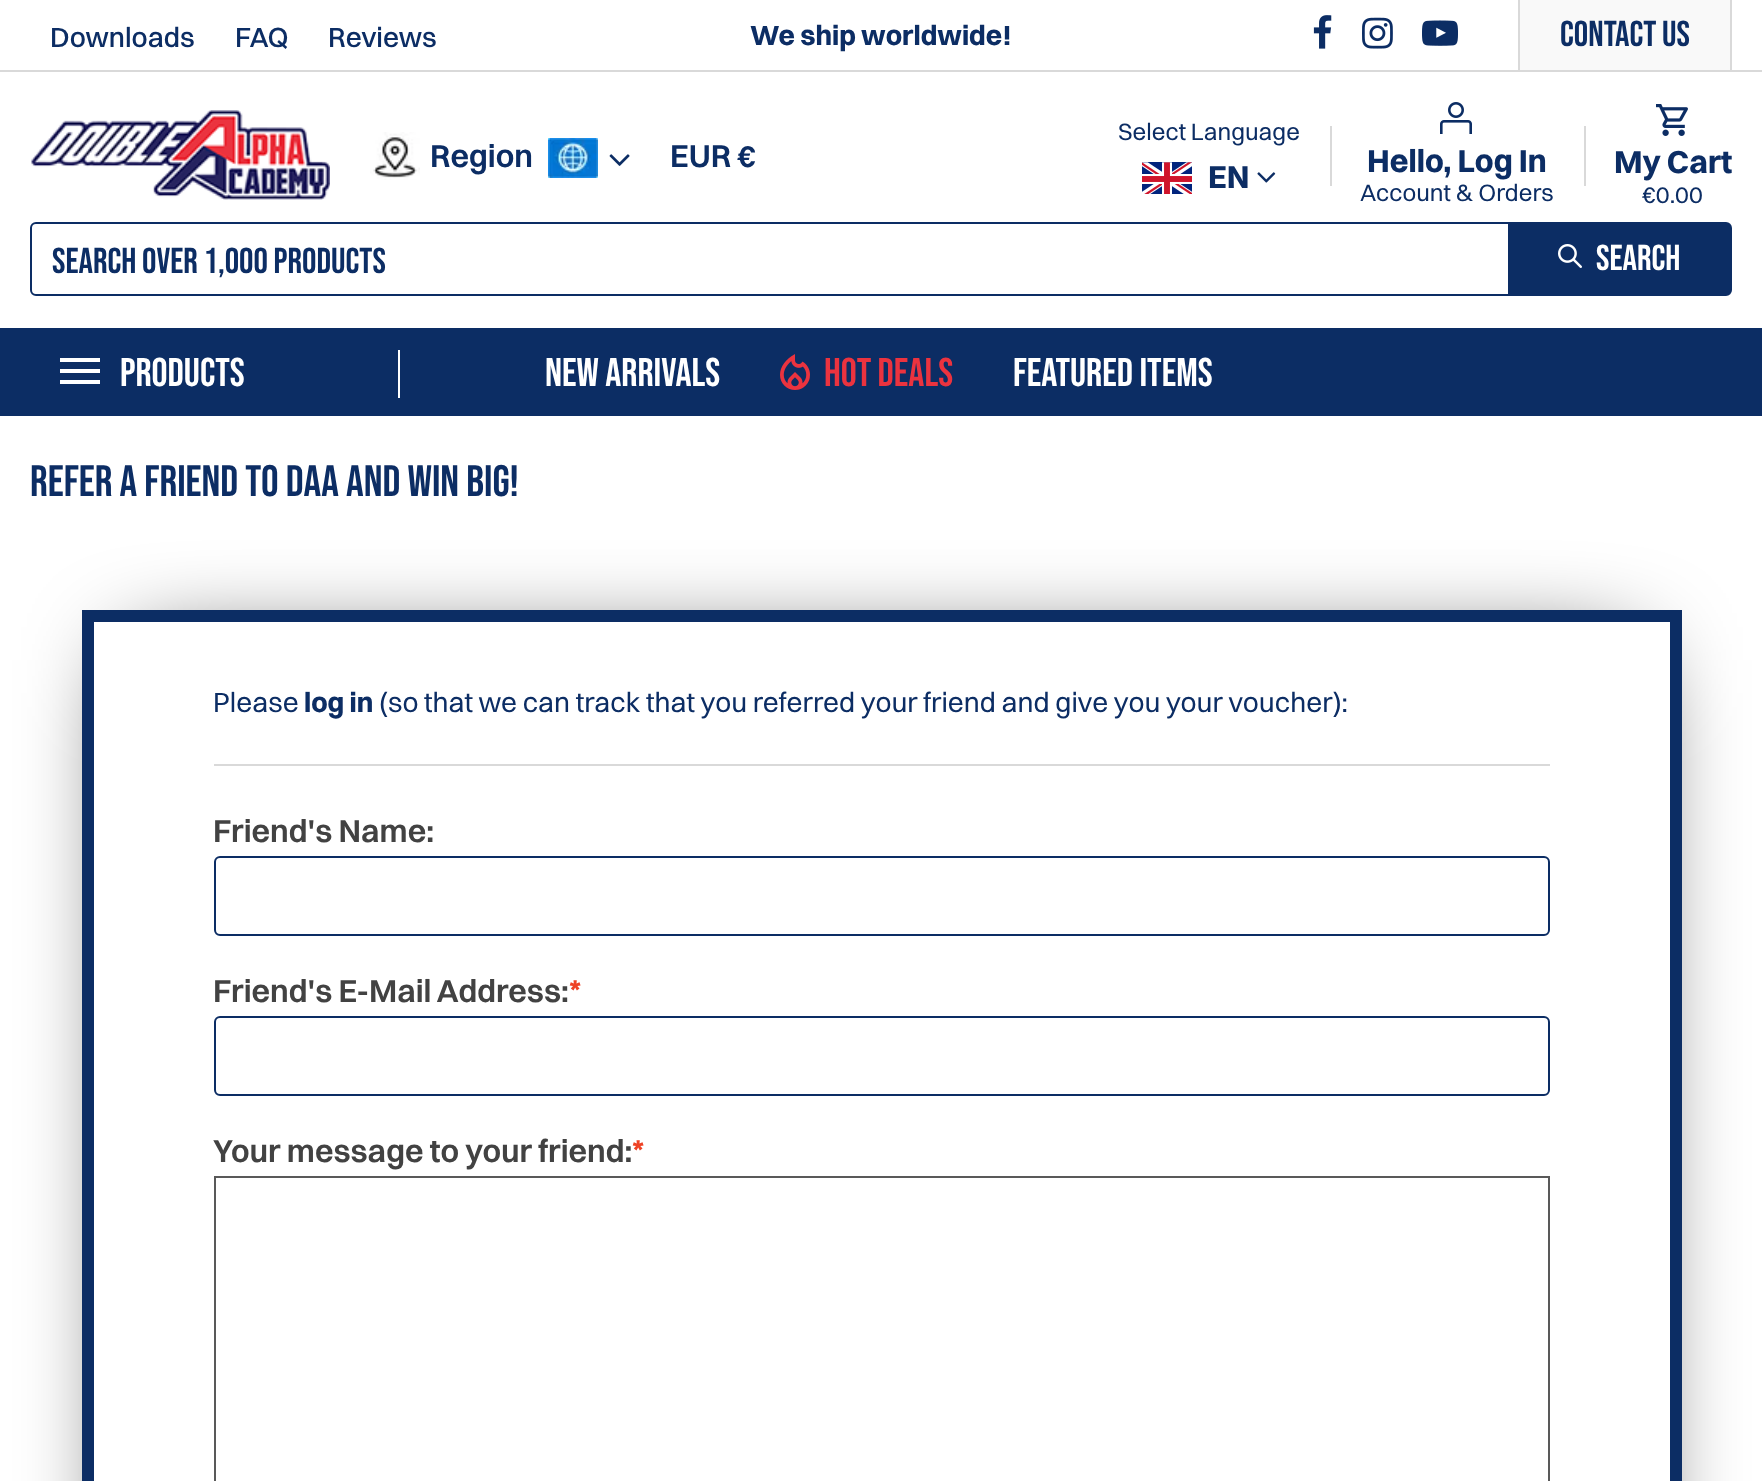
async function draw(canvas) {
  canvas.width = 1762;
  canvas.height = 1481;
  const ctx = canvas.getContext('2d');
  ctx.miterLimit = 4;
  ctx.fontKerning = 'normal';
  function label(s, x, y, font, color) {
    ctx.font = font;
    ctx.fillStyle = color;
    ctx.fillText(s, x, y);
  }
  function rect(x, y, w, h, color) {
    ctx.fillStyle = color;
    ctx.fillRect(x, y, w, h);
  }
  function roundedRect(x, y, w, h, r, color) {
    ctx.fillStyle = color;
    ctx.beginPath();
    ctx.roundRect(x, y, w, h, r);
    ctx.fill();
  }
  async function image(src, x, y, w, h) {
    const img = new Image();
    img.src = src;
    await img.decode();
    ctx.drawImage(img, x, y, w, h);
  }
  let path;

  rect(0, 0, 1762, 1481, '#fff');
  rect(0, 70, 1762, 2, '#d9d9d9');
  label('Downloads', 50, 47, '500 28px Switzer', '#0c2d64');
  label('FAQ', 235, 47, '500 28px Switzer', '#0c2d64');
  label('Reviews', 328, 47, '500 28px Switzer', '#0c2d64');
  label('We ship worldwide!', 750, 45, 'bold 28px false', '#0c2d64');
  await image('assets/img1.png', 1313, 15, 19, 34);
  await image('assets/img2.png', 1362, 17, 31, 32);
  await image('assets/img3.png', 1422, 20, 36, 26);
  rect(1520, 0, 210, 70, '#f9f9f9');
  rect(1730, 0, 2, 70, '#d9d9d9');
  rect(1518, 0, 2, 70, '#d9d9d9');
  label('Contact Us', 1560, 46, '36px Bebas Neue', '#0c2d64');
  await image('assets/img4.png', 31, 110, 299, 90);
  await image('assets/img5.png', 370, 132, 50, 48);
  label('Region', 430, 167, '600 32px Switzer', '#0c2d64');
  await image('assets/img6.png', 548, 138, 50, 40);
  await image('assets/img7.png', 609, 154, 21, 12);
  label('EUR €', 670, 167, '600 32px Switzer', '#0c2d64');
  label('Select Language', 1118, 140, '24px false', '#0c2d64');
  await image('assets/img8.png', 1142, 162, 50, 32);
  label('EN', 1208, 188, 'bold 32px false', '#0c2d64');
  await image('assets/img9.png', 1257, 172, 19, 11);
  rect(1330, 126, 2, 60, '#d9d9d9');
  await image('assets/img10.png', 1440, 102, 32, 32);
  label('Hello, Log In', 1367, 172, 'bold 32px false', '#0c2d64');
  label('Account & Orders', 1360, 201, '24px false', '#0c2d64');
  rect(1584, 126, 2, 60, '#d9d9d9');
  await image('assets/img11.png', 1656, 104, 32, 32);
  label('My Cart', 1614, 173, 'bold 32px false', '#0c2d64');
  label('€0.00', 1642, 203, '24px false', '#0c2d64');
  ctx.beginPath();
  ctx.roundRect(31, 223, 1700, 72, 5);
  ctx.strokeStyle = '#0c2d64';
  ctx.lineWidth = 2;
  ctx.stroke();
  roundedRect(32, 224, 1698, 70, 6, '#fff');
  label('SEARCH OVER 1,000 PRODUCTS', 52, 273, '36px Bebas Neue', '#0c2d64');
  rect(1508, 224, 222, 70, '#0c2d64');
  await image('assets/img12.png', 1558, 244, 24, 24);
  label('SEARCH', 1596, 270, '36px Bebas Neue', '#fff');
  rect(0, 328, 1762, 88, '#0c2d64');
  rect(398, 350, 2, 48, '#fff');
  path = new Path2D('M60 384V380H100V384ZM60 373V369H100V373ZM60 362V358H100V362Z');
  ctx.fill(path);
  label('PRODUCTS', 120, 386, '40px Bebas Neue', '#fff');
  label('NEW ARRIVALS', 545, 386, '40px Bebas Neue', '#fff');
  await image('assets/img13.png', 780, 354, 30, 36);
  label('HOT DEALS', 824, 386, '40px Bebas Neue', '#eb333f');
  label('FEATURED ITEMS', 1013, 386, '40px Bebas Neue', '#fff');
  label('Refer a friend to DAA and WIN BIG!', 30, 496, '44px Bebas Neue', '#0c2d64');
  ctx.save();
  path = new Path2D('M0 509H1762V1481H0ZM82 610H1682V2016H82Z');
  ctx.clip(path, 'evenodd');
  ctx.fillStyle = '#000';
  ctx.filter = 'blur(50px)';
  ctx.beginPath();
  ctx.rect(132, 660, 1500, 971);
  ctx.fill();
  ctx.filter = 'none';
  ctx.restore();
  ctx.lineWidth = 12;
  ctx.strokeRect(88, 616, 1588, 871);
  label('Please', 213, 712, '28px false', '#0c2d64');
  label('log in', 304, 712, 'bold 28px false', '#0c2d64');
  label('(so that we can track that you referred your friend and give you your voucher):', 379, 712, '28px false', '#0c2d64');
  rect(214, 764, 1336, 2, '#d9d9d9');
  label('Friend\'s Name:', 213, 842, '600 32px Switzer', '#424242');
  ctx.beginPath();
  ctx.roundRect(215, 857, 1334, 78, 5);
  ctx.lineWidth = 2;
  ctx.stroke();
  label('Friend\'s E-Mail Address:', 213, 1002, '600 32px Switzer', '#424242');
  label('*', 569, 1002, '600 32px Switzer', '#ee4225');
  ctx.beginPath();
  ctx.roundRect(215, 1017, 1334, 78, 5);
  ctx.stroke();
  label('Your message to your friend:', 213, 1162, '600 32px Switzer', '#424242');
  label('*', 632, 1162, '600 32px Switzer', '#ee4225');
  ctx.strokeStyle = '#595959';
  ctx.strokeRect(215, 1177, 1334, 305);
}

draw(document.querySelector('canvas'));
